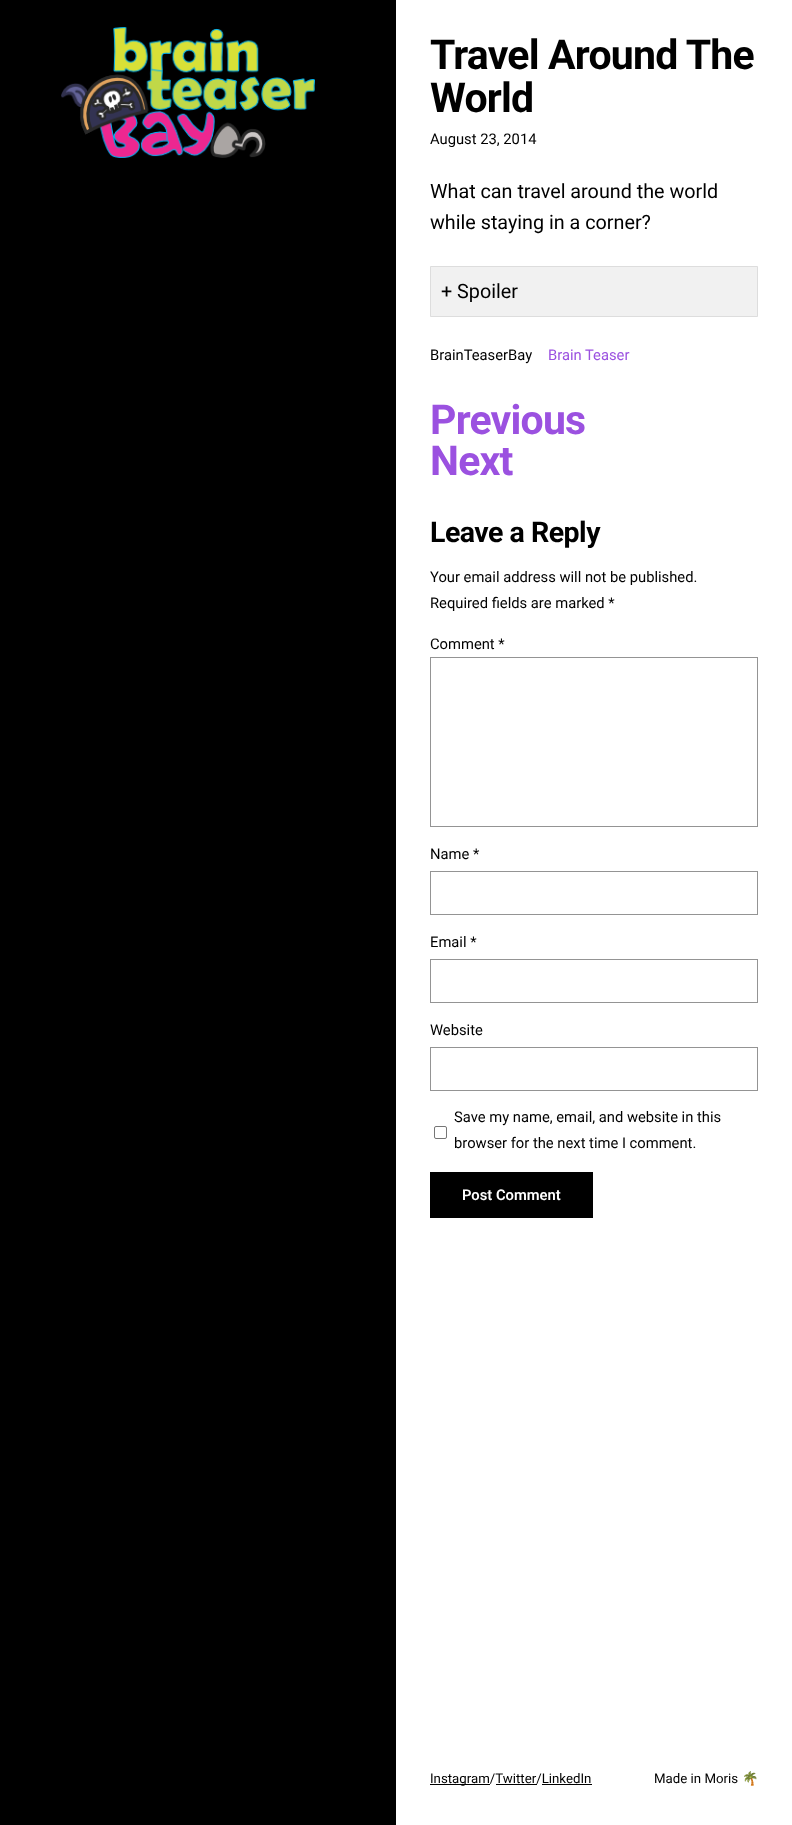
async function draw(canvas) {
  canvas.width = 792;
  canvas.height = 1825;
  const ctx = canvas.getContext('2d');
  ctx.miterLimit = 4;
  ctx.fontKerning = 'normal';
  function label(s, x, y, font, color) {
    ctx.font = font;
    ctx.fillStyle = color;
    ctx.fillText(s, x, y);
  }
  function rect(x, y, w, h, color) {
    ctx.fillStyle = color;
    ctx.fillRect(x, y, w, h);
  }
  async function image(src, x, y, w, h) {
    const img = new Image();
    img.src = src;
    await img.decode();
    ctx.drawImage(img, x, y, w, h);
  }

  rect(0, 0, 792, 1825, '#fff');
  rect(0, 0, 396, 1825, '#000');
  await image('assets/img1.png', 61, 27, 254, 131);
  ctx.letterSpacing = '-0.8px';
  label('Travel Around The', 430, 69, 'bold 41px Roboto', '#000');
  label('World', 430, 112, 'bold 41px Roboto', '#000');
  ctx.letterSpacing = '0px';
  label('August 23, 2014', 430, 144, '14.75px Roboto', '#000');
  label('What can travel around the world', 430, 198, '19.75px Roboto', '#000');
  label('while staying in a corner?', 430, 229, '19.75px Roboto', '#000');
  ctx.fillStyle = '#f1f1f1';
  ctx.beginPath();
  ctx.rect(430.5, 266.5, 327, 50);
  ctx.fill();
  ctx.strokeStyle = '#ddd';
  ctx.stroke();
  label('+ Spoiler', 441, 298, '19.75px Roboto', '#000');
  label('BrainTeaserBay', 430, 360, '14.75px Roboto', '#000');
  label('Brain Teaser', 548, 360, '14.75px Roboto', '#9b51e0');
  ctx.letterSpacing = '-0.8px';
  label('Previous', 430, 434, 'bold 41px Roboto', '#9b51e0');
  label('Next', 430, 475, 'bold 41px Roboto', '#9b51e0');
  ctx.letterSpacing = '-0.5px';
  label('Leave a Reply', 430, 542, 'bold 28.5px Roboto', '#000');
  ctx.letterSpacing = '0px';
  label('Your email address will not be published.', 430, 582, '14.75px Roboto', '#000');
  label('Required fields are marked *', 430, 608, '14.75px Roboto', '#000');
  label('Comment *', 430, 649, '14.75px Roboto', '#000');
  ctx.strokeStyle = '#949494';
  ctx.strokeRect(430.5, 657.5, 327, 169);
  label('Name *', 430, 859, '14.75px Roboto', '#000');
  ctx.strokeRect(430.5, 871.5, 327, 43);
  label('Email *', 430, 947, '14.75px Roboto', '#000');
  ctx.strokeRect(430.5, 959.5, 327, 43);
  label('Website', 430, 1035, '14.75px Roboto', '#000');
  ctx.strokeRect(430.5, 1047.5, 327, 43);
  ctx.beginPath();
  ctx.roundRect(434.5, 1126.5, 12, 12, 1.5);
  ctx.strokeStyle = '#767676';
  ctx.stroke();
  label('Save my name, email, and website in this', 454, 1122, '14.75px Roboto', '#000');
  label('browser for the next time I comment.', 454, 1148, '14.75px Roboto', '#000');
  rect(430, 1172, 163, 46, '#000');
  label('Post Comment', 462, 1200, '600 14.75px Roboto', '#fff');
  rect(430, 1784, 60, 1, '#000');
  label('Instagram/Twitter/LinkedIn', 430, 1783, '13.25px Roboto', '#000');
  rect(496, 1784, 41, 1, '#000');
  rect(542, 1784, 50, 1, '#000');
  label('Made in Moris', 654, 1783, '13.25px Roboto', '#000');
  label('🌴', 742, 1783, '13.25px Noto Color Emoji', '#000');
}

draw(document.querySelector('canvas'));
